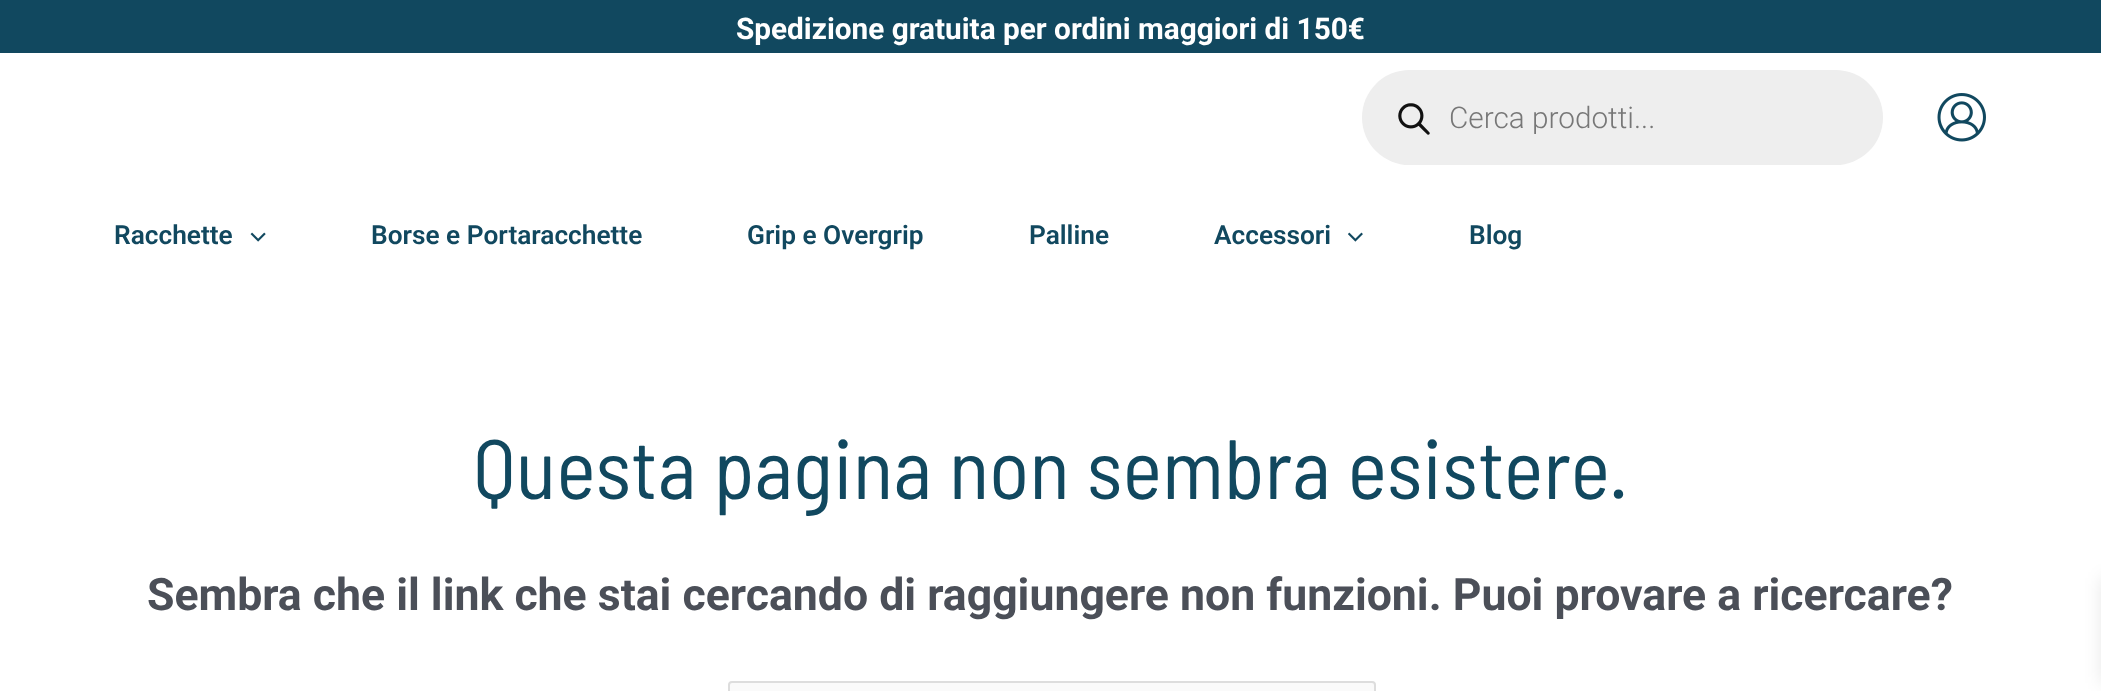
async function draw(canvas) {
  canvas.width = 2101;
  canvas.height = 691;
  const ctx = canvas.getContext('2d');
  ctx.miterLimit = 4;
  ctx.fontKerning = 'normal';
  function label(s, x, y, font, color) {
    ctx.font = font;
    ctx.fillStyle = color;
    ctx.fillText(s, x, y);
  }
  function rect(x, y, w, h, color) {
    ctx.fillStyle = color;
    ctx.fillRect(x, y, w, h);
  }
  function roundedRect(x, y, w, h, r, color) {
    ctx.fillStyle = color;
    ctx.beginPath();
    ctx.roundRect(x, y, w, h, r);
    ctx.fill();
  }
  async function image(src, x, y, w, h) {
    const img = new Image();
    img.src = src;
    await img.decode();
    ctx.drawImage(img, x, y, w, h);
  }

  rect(0, 0, 2101, 691, '#fff');
  rect(0, 0, 2101, 53, '#11485f');
  label('Spedizione gratuita per ordini maggiori di 150€', 736, 39, 'bold 29.75px Roboto', '#fff');
  roundedRect(1362, 70, 521, 95, 47.5, '#eee');
  await image('assets/img1.png', 1398, 103, 32, 32);
  label('Cerca prodotti...', 1449, 128, '300 29.75px Roboto', '#777');
  await image('assets/img2.png', 1937, 93, 49, 49);
  label('Racchette', 114, 244, '600 26.25px Roboto', '#11485f');
  await image('assets/img3.png', 250, 232, 16, 10);
  label('Borse e Portaracchette', 371, 244, '600 26.25px Roboto', '#11485f');
  label('Grip e Overgrip', 747, 244, '600 26.25px Roboto', '#11485f');
  label('Palline', 1029, 244, '600 26.25px Roboto', '#11485f');
  label('Accessori', 1214, 244, '600 26.25px Roboto', '#11485f');
  await image('assets/img4.png', 1348, 232, 15, 10);
  label('Blog', 1469, 244, '600 26.25px Roboto', '#11485f');
  label('Questa pagina non sembra esistere.', 473, 499, '84px Barlow Semi Condensed', '#11485f');
  label('Sembra che il link che stai cercando di raggiungere non funzioni. Puoi provare a ricercare?', 147, 610, 'bold 44.6px Roboto', '#4b4f58');
  ctx.fillStyle = '#fafafa';
  ctx.beginPath();
  ctx.roundRect(729, 682, 646, 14, 3);
  ctx.fill();
  ctx.strokeStyle = '#ddd';
  ctx.lineWidth = 2;
  ctx.stroke();
  ctx.fillStyle = '#0000001a';
  ctx.filter = 'blur(9px)';
  ctx.beginPath();
  ctx.rect(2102, 578, 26, 105);
  ctx.fill();
  ctx.filter = 'none';
}

draw(document.querySelector('canvas'));
